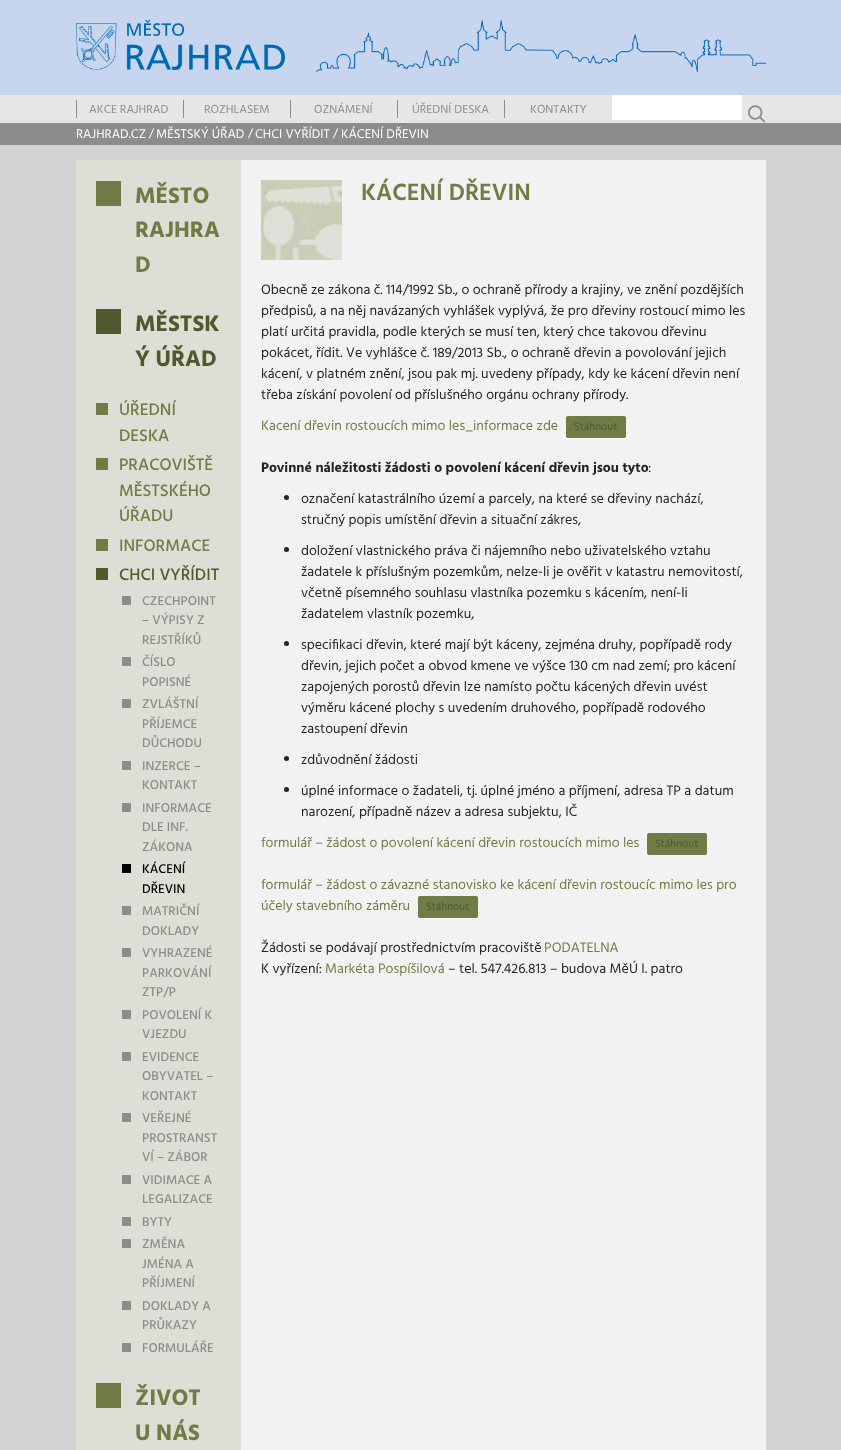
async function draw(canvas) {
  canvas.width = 841;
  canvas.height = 1450;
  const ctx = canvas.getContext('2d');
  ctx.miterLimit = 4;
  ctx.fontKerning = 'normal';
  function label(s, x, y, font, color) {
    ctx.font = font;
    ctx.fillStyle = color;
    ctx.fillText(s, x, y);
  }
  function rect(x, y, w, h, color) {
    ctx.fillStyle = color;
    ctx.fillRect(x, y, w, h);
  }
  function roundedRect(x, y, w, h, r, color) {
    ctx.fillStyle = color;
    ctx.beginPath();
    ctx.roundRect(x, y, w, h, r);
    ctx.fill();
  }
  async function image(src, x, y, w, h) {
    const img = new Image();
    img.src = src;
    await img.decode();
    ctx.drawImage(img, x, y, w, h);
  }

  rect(0, 0, 841, 1450, '#d3d3d3');
  rect(0, 0, 841, 95, '#c7d5ee');
  await image('assets/img1.png', 76, 20, 209, 50);
  await image('assets/img2.png', 316, 20, 450, 52);
  rect(0, 95, 841, 28, '#e6e6e5');
  rect(76, 100, 1, 18, '#8c8c8c');
  label('AKCE RAJHRAD', 89, 113, '12px Hind', '#8c8c8c');
  rect(183, 100, 1, 18, '#8c8c8c');
  label('ROZHLASEM', 204, 113, '12px Hind', '#8c8c8c');
  rect(290, 100, 1, 18, '#8c8c8c');
  label('OZNÁMENÍ', 314, 113, '12px Hind', '#8c8c8c');
  rect(397, 100, 1, 18, '#8c8c8c');
  label('ÚŘEDNÍ DESKA', 412, 113, '12px Hind', '#8c8c8c');
  rect(504, 100, 1, 18, '#8c8c8c');
  label('KONTAKTY', 530, 113, '12px Hind', '#8c8c8c');
  rect(612, 95, 130, 25, '#fff');
  await image('assets/img3.png', 748, 105, 17, 18);
  rect(0, 123, 841, 22, '#8c8c8c');
  label('RAJHRAD.CZ', 76, 138, '13px Hind', '#fff');
  label('/', 149, 137, '12px Hind', '#fff');
  label('MĚSTSKÝ ÚŘAD', 156, 138, '13px Hind', '#fff');
  label('/', 248, 137, '12px Hind', '#fff');
  label('CHCI VYŘÍDIT', 255, 138, '13px Hind', '#fff');
  label('/', 333, 137, '12px Hind', '#fff');
  label('KÁCENÍ DŘEVIN', 341, 138, '13px Hind', '#fff');
  rect(76, 160, 165, 1290, '#dddfd6');
  rect(96, 181, 25, 25, '#707c45');
  label('MĚSTO', 135, 203, 'bold 23px Hind', '#707c45');
  label('RAJHRA', 135, 237, 'bold 23px Hind', '#707c45');
  label('D', 135, 272, 'bold 23px Hind', '#707c45');
  rect(96, 309, 25, 25, '#4e592c');
  label('MĚSTSK', 135, 331, 'bold 23px Hind', '#4e592c');
  label('Ý ÚŘAD', 135, 366, 'bold 23px Hind', '#4e592c');
  rect(96, 403, 12, 12, '#707c45');
  label('ÚŘEDNÍ', 119, 415, '500 17px Hind', '#707c45');
  label('DESKA', 119, 441, '500 17px Hind', '#707c45');
  rect(96, 458, 12, 12, '#707c45');
  label('PRACOVIŠTĚ', 119, 470, '500 17px Hind', '#707c45');
  label('MĚSTSKÉHO', 119, 496, '500 17px Hind', '#707c45');
  label('ÚŘADU', 119, 521, '500 17px Hind', '#707c45');
  rect(96, 539, 12, 12, '#707c45');
  label('INFORMACE', 119, 551, '500 17px Hind', '#707c45');
  rect(96, 568, 12, 12, '#4e592c');
  label('CHCI VYŘÍDIT', 119, 580, '500 17px Hind', '#4e592c');
  rect(122, 596, 9, 9, '#8c8c8c');
  label('CZECHPOINT', 142, 605, '500 13px Hind', '#8c8c8c');
  label('– VÝPISY Z', 142, 624, '500 13px Hind', '#8c8c8c');
  label('REJSTŘÍKŮ', 142, 644, '500 13px Hind', '#8c8c8c');
  rect(122, 657, 9, 9, '#8c8c8c');
  label('ČÍSLO', 142, 666, '500 13px Hind', '#8c8c8c');
  label('POPISNÉ', 142, 686, '500 13px Hind', '#8c8c8c');
  rect(122, 699, 9, 9, '#8c8c8c');
  label('ZVLÁŠTNÍ', 142, 708, '500 13px Hind', '#8c8c8c');
  label('PŘÍJEMCE', 142, 728, '500 13px Hind', '#8c8c8c');
  label('DŮCHODU', 142, 747, '500 13px Hind', '#8c8c8c');
  rect(122, 761, 9, 9, '#8c8c8c');
  label('INZERCE –', 142, 770, '500 13px Hind', '#8c8c8c');
  label('KONTAKT', 142, 789, '500 13px Hind', '#8c8c8c');
  rect(122, 803, 9, 9, '#8c8c8c');
  label('INFORMACE', 142, 812, '500 13px Hind', '#8c8c8c');
  label('DLE INF.', 142, 831, '500 13px Hind', '#8c8c8c');
  label('ZÁKONA', 142, 851, '500 13px Hind', '#8c8c8c');
  rect(122, 864, 9, 9, '#000');
  label('KÁCENÍ', 142, 873, '500 13px Hind', '#000');
  label('DŘEVIN', 142, 893, '500 13px Hind', '#000');
  rect(122, 906, 9, 9, '#8c8c8c');
  label('MATRIČNÍ', 142, 915, '500 13px Hind', '#8c8c8c');
  label('DOKLADY', 142, 935, '500 13px Hind', '#8c8c8c');
  rect(122, 948, 9, 9, '#8c8c8c');
  label('VYHRAZENÉ', 142, 957, '500 13px Hind', '#8c8c8c');
  label('PARKOVÁNÍ', 142, 977, '500 13px Hind', '#8c8c8c');
  label('ZTP/P', 142, 996, '500 13px Hind', '#8c8c8c');
  rect(122, 1010, 9, 9, '#8c8c8c');
  label('POVOLENÍ K', 142, 1019, '500 13px Hind', '#8c8c8c');
  label('VJEZDU', 142, 1038, '500 13px Hind', '#8c8c8c');
  rect(122, 1052, 9, 9, '#8c8c8c');
  label('EVIDENCE', 142, 1061, '500 13px Hind', '#8c8c8c');
  label('OBYVATEL –', 142, 1080, '500 13px Hind', '#8c8c8c');
  label('KONTAKT', 142, 1100, '500 13px Hind', '#8c8c8c');
  rect(122, 1113, 9, 9, '#8c8c8c');
  label('VEŘEJNÉ', 142, 1122, '500 13px Hind', '#8c8c8c');
  label('PROSTRANST', 142, 1142, '500 13px Hind', '#8c8c8c');
  label('VÍ – ZÁBOR', 142, 1161, '500 13px Hind', '#8c8c8c');
  rect(122, 1175, 9, 9, '#8c8c8c');
  label('VIDIMACE A', 142, 1184, '500 13px Hind', '#8c8c8c');
  label('LEGALIZACE', 142, 1203, '500 13px Hind', '#8c8c8c');
  rect(122, 1217, 9, 9, '#8c8c8c');
  label('BYTY', 142, 1226, '500 13px Hind', '#8c8c8c');
  rect(122, 1239, 9, 9, '#8c8c8c');
  label('ZMĚNA', 142, 1248, '500 13px Hind', '#8c8c8c');
  label('JMÉNA A', 142, 1268, '500 13px Hind', '#8c8c8c');
  label('PŘÍJMENÍ', 142, 1287, '500 13px Hind', '#8c8c8c');
  rect(122, 1301, 9, 9, '#8c8c8c');
  label('DOKLADY A', 142, 1310, '500 13px Hind', '#8c8c8c');
  label('PRŮKAZY', 142, 1329, '500 13px Hind', '#8c8c8c');
  rect(122, 1343, 9, 9, '#8c8c8c');
  label('FORMULÁŘE', 142, 1352, '500 13px Hind', '#8c8c8c');
  rect(96, 1383, 25, 25, '#707c45');
  label('ŽIVOT', 135, 1405, 'bold 23px Hind', '#707c45');
  label('U NÁS', 135, 1440, 'bold 23px Hind', '#707c45');
  rect(241, 160, 525, 1290, '#f2f2f2');
  await image('assets/img4.png', 261, 180, 81, 80);
  label('KÁCENÍ DŘEVIN', 361, 200, '600 24px Hind', '#707c45');
  label('Obecně ze zákona č. 114/1992 Sb., o ochraně přírody a krajiny, ve znění pozdějších', 261, 294, '14px Hind', '#212529');
  label('předpisů, a na něj navázaných vyhlášek vyplývá, že pro dřeviny rostoucí mimo les', 261, 315, '14px Hind', '#212529');
  label('platí určitá pravidla, podle kterých se musí ten, který chce takovou dřevinu', 261, 336, '14px Hind', '#212529');
  label('pokácet, řídit. Ve vyhlášce č. 189/2013 Sb., o ochraně dřevin a povolování jejich', 261, 357, '14px Hind', '#212529');
  label('kácení, v platném znění, jsou pak mj. uvedeny případy, kdy ke kácení dřevin není', 261, 378, '14px Hind', '#212529');
  label('třeba získání povolení od příslušného orgánu ochrany přírody.', 261, 399, '14px Hind', '#212529');
  label('Kacení dřevin rostoucích mimo les_informace zde', 261, 430, '14px Hind', '#707c45');
  roundedRect(566, 416, 60, 22, 2, '#707c45');
  label('Stáhnout', 574, 430, '11px Hind', '#4e592c');
  label('Povinné náležitosti žádosti o povolení kácení dřevin jsou tyto', 261, 472, 'bold 14px Hind', '#212529');
  label(':', 648, 472, '14px Hind', '#212529');
  ctx.beginPath();
  ctx.arc(286.5, 497.5, 2.5, 0, 2 * Math.PI);
  ctx.fill();
  label('označení katastrálního území a parcely, na které se dřeviny nachází,', 301, 503, '14px Hind', '#212529');
  label('stručný popis umístění dřevin a situační zákres,', 301, 524, '14px Hind', '#212529');
  ctx.beginPath();
  ctx.arc(286.5, 549.5, 2.5, 0, 2 * Math.PI);
  ctx.fill();
  label('doložení vlastnického práva či nájemního nebo uživatelského vztahu', 301, 555, '14px Hind', '#212529');
  label('žadatele k příslušným pozemkům, nelze-li je ověřit v katastru nemovitostí,', 301, 576, '14px Hind', '#212529');
  label('včetně písemného souhlasu vlastníka pozemku s kácením, není-li', 301, 597, '14px Hind', '#212529');
  label('žadatelem vlastník pozemku,', 301, 618, '14px Hind', '#212529');
  ctx.beginPath();
  ctx.arc(286.5, 643.5, 2.5, 0, 2 * Math.PI);
  ctx.fill();
  label('specifikaci dřevin, které mají být káceny, zejména druhy, popřípadě rody', 301, 649, '14px Hind', '#212529');
  label('dřevin, jejich počet a obvod kmene ve výšce 130 cm nad zemí; pro kácení', 301, 670, '14px Hind', '#212529');
  label('zapojených porostů dřevin lze namísto počtu kácených dřevin uvést', 301, 691, '14px Hind', '#212529');
  label('výměru kácené plochy s uvedením druhového, popřípadě rodového', 301, 712, '14px Hind', '#212529');
  label('zastoupení dřevin', 301, 733, '14px Hind', '#212529');
  ctx.beginPath();
  ctx.arc(286.5, 758.5, 2.5, 0, 2 * Math.PI);
  ctx.fill();
  label('zdůvodnění žádosti', 301, 764, '14px Hind', '#212529');
  ctx.beginPath();
  ctx.arc(286.5, 789.5, 2.5, 0, 2 * Math.PI);
  ctx.fill();
  label('úplné informace o žadateli, tj. úplné jméno a příjmení, adresa TP a datum', 301, 795, '14px Hind', '#212529');
  label('narození, případně název a adresa subjektu, IČ', 301, 816, '14px Hind', '#212529');
  label('formulář – žádost o povolení kácení dřevin rostoucích mimo les', 261, 847, '14px Hind', '#707c45');
  roundedRect(647, 833, 60, 22, 2, '#707c45');
  label('Stáhnout', 655, 847, '11px Hind', '#4e592c');
  label('formulář – žádost o závazné stanovisko ke kácení dřevin rostoucíc mimo les pro', 261, 889, '14px Hind', '#707c45');
  label('účely stavebního záměru', 261, 910, '14px Hind', '#707c45');
  roundedRect(418, 896, 60, 22, 2, '#707c45');
  label('Stáhnout', 426, 910, '11px Hind', '#4e592c');
  label('Žádosti se podávají prostřednictvím pracoviště', 261, 952, '14px Hind', '#212529');
  label('PODATELNA', 544, 952, '14px Hind', '#707c45');
  label('K vyřízení:', 261, 973, '14px Hind', '#212529');
  label('Markéta Pospíšilová', 325, 973, '14px Hind', '#707c45');
  label('– tel. 547.426.813 – budova MěÚ I. patro', 448, 973, '14px Hind', '#212529');
}

draw(document.querySelector('canvas'));
